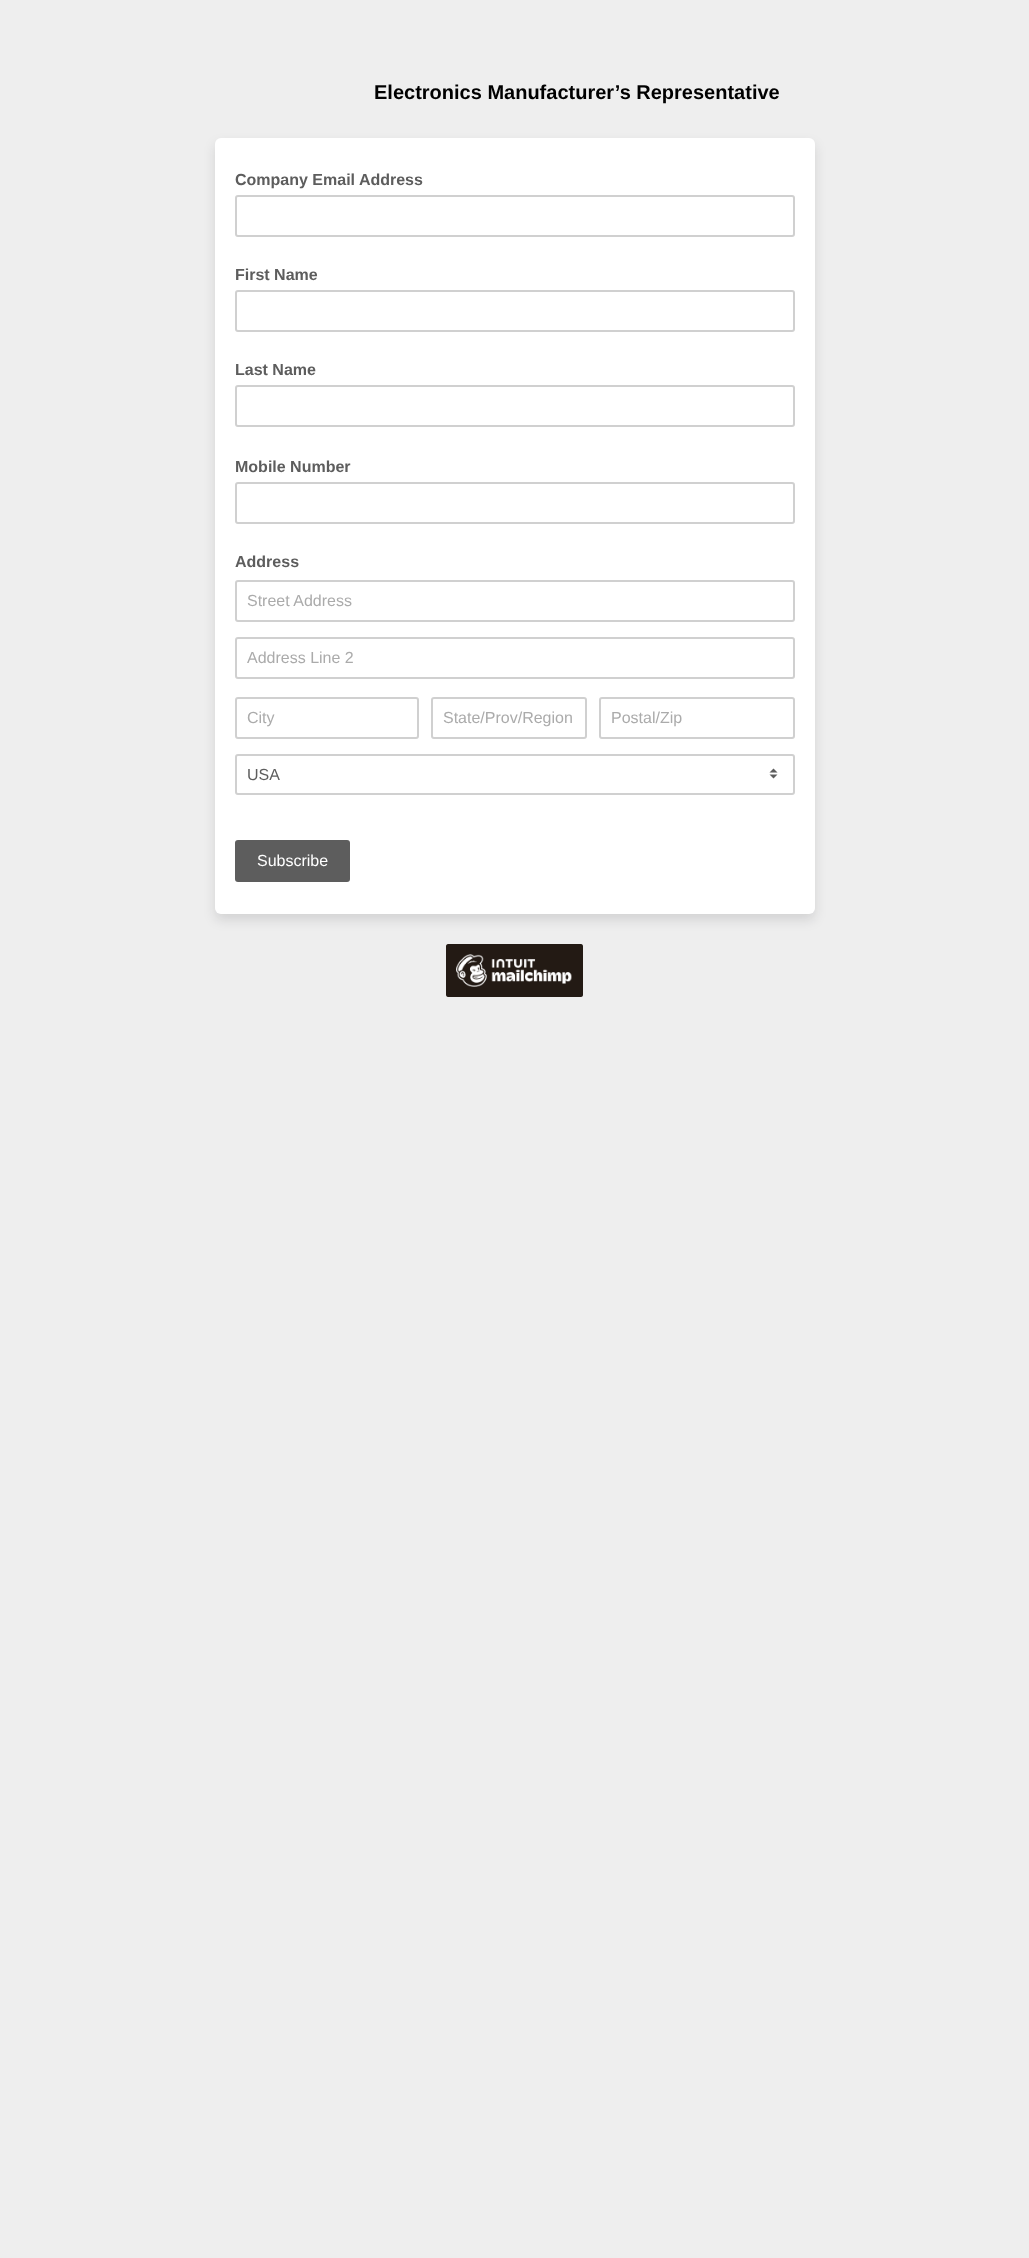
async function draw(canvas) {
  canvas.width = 1029;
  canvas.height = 2258;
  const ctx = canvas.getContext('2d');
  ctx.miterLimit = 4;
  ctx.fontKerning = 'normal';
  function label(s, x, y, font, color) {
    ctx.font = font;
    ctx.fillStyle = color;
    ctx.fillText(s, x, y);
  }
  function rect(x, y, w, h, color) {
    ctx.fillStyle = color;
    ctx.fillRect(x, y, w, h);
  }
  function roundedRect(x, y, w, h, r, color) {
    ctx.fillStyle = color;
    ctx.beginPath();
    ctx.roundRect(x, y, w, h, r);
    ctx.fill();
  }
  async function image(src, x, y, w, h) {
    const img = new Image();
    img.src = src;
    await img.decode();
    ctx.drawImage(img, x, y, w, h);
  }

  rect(0, 0, 1029, 2258, '#eee');
  label('Electronics Manufacturer’s Representative', 374, 99, 'bold 20px Liberation Sans', '#000');
  ctx.fillStyle = '#0d12161f';
  ctx.filter = 'blur(6px)';
  ctx.beginPath();
  ctx.roundRect(215, 144, 600, 776, 6);
  ctx.fill();
  ctx.filter = 'none';
  roundedRect(215, 138, 600, 776, 6, '#fff');
  label('Company Email Address', 235, 185, 'bold 16px Liberation Sans', '#5d5d5d');
  ctx.beginPath();
  ctx.roundRect(236, 196, 558, 40, 2);
  ctx.strokeStyle = '#d0d0d0';
  ctx.lineWidth = 2;
  ctx.stroke();
  label('First Name', 235, 280, 'bold 16px Liberation Sans', '#5d5d5d');
  ctx.beginPath();
  ctx.roundRect(236, 291, 558, 40, 2);
  ctx.stroke();
  label('Last Name', 235, 375, 'bold 16px Liberation Sans', '#5d5d5d');
  ctx.beginPath();
  ctx.roundRect(236, 386, 558, 40, 2);
  ctx.stroke();
  label('Mobile Number', 235, 472, 'bold 16px Liberation Sans', '#5d5d5d');
  ctx.beginPath();
  ctx.roundRect(236, 483, 558, 40, 2);
  ctx.stroke();
  label('Address', 235, 567, 'bold 16px Liberation Sans', '#5d5d5d');
  ctx.beginPath();
  ctx.roundRect(236, 581, 558, 40, 2);
  ctx.stroke();
  label('Street Address', 247, 606, '16px Liberation Sans', '#ababab');
  ctx.beginPath();
  ctx.roundRect(236, 638, 558, 40, 2);
  ctx.stroke();
  label('Address Line 2', 247, 663, '16px Liberation Sans', '#ababab');
  ctx.beginPath();
  ctx.roundRect(236, 698, 182, 40, 2);
  ctx.stroke();
  label('City', 247, 723, '16px Liberation Sans', '#ababab');
  ctx.beginPath();
  ctx.roundRect(432, 698, 154, 40, 2);
  ctx.stroke();
  label('State/Prov/Region', 443, 723, '16px Liberation Sans', '#ababab');
  ctx.beginPath();
  ctx.roundRect(600, 698, 194, 40, 2);
  ctx.stroke();
  label('Postal/Zip', 611, 723, '16px Liberation Sans', '#ababab');
  await image('assets/img1.png', 769, 768, 9, 11);
  ctx.beginPath();
  ctx.roundRect(236, 755, 558, 39, 2);
  ctx.stroke();
  label('USA', 247, 780, '16px Liberation Sans', '#5d5d5d');
  roundedRect(235, 840, 115, 42, 3, '#5d5d5d');
  label('Subscribe', 257, 866, '16px Liberation Sans', '#fff');
  await image('assets/img2.png', 446, 944, 137, 53);
}

draw(document.querySelector('canvas'));
